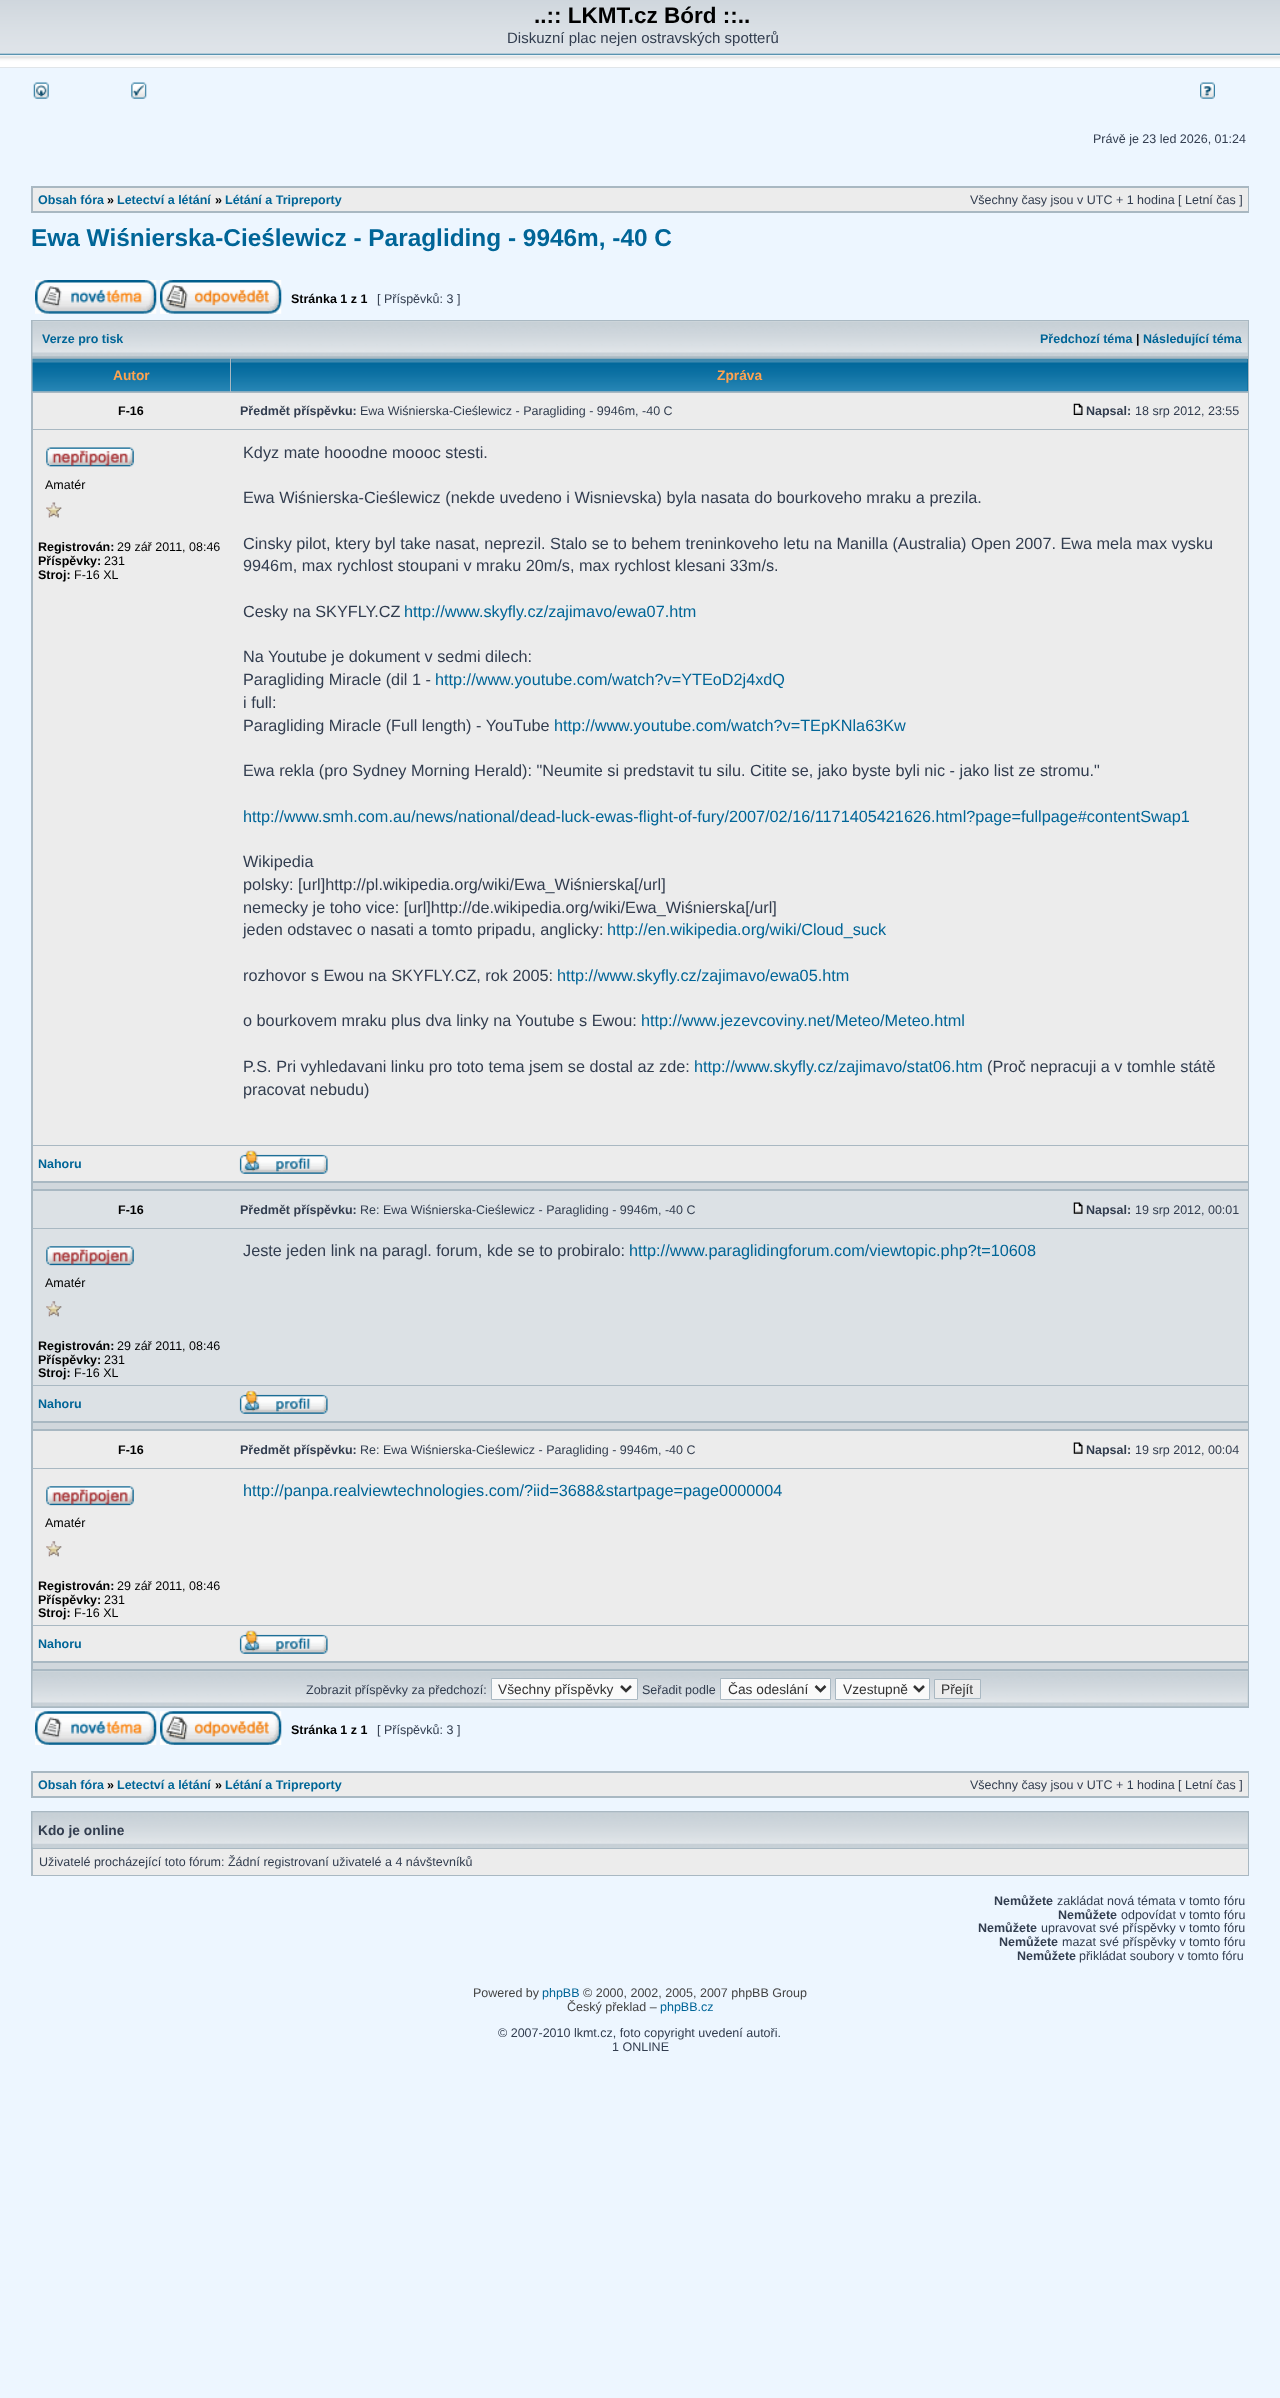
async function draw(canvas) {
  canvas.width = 1280;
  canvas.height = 2398;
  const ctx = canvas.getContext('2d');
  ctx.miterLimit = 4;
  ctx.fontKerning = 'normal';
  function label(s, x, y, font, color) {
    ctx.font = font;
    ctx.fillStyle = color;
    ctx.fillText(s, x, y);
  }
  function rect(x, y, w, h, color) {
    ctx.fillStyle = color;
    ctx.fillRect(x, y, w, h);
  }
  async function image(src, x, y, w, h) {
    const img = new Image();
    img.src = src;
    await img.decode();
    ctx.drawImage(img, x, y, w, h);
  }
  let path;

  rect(0, 0, 1280, 2398, '#edf6ff');
  rect(0, 67, 1280, 1, '#c1cad2');
  await image('assets/img1.png', 0, 0, 1280, 68);
  label('..:: LKMT.cz Bórd ::..', 534, 23, 'bold 22.5px Liberation Sans', '#000');
  label('Diskuzní plac nejen ostravských spotterů', 507, 43, '15px Liberation Sans', '#323d4f');
  await image('assets/img2.png', 33, 82, 16, 17);
  await image('assets/img3.png', 131, 82, 16, 17);
  await image('assets/img4.png', 1200, 82, 15, 17);
  label('Právě je 23 led 2026, 01:24', 1093, 143, '12.5px Liberation Sans', '#323d4f');
  rect(31, 186, 1218, 27, '#a9b8c2');
  rect(33, 188, 1215, 23, '#ececec');
  label('Obsah fóra', 38, 204, 'bold 12.5px Liberation Sans', '#006597');
  label('»', 107, 204, 'bold 12.5px Liberation Sans', '#000');
  label('Letectví a létání', 117, 204, 'bold 12.5px Liberation Sans', '#006597');
  label('»', 215, 204, 'bold 12.5px Liberation Sans', '#000');
  label('Létání a Tripreporty', 225, 204, 'bold 12.5px Liberation Sans', '#006597');
  label('Všechny časy jsou v UTC + 1 hodina [ Letní čas ]', 970, 204, '12.5px Liberation Sans', '#323d4f');
  label('Ewa Wiśnierska-Cieślewicz - Paragliding - 9946m, -40 C', 31, 246, 'bold 24.4px Liberation Sans', '#006597');
  await image('assets/img5.png', 35, 280, 122, 34);
  await image('assets/img6.png', 160, 280, 122, 34);
  label('Stránka 1 z 1', 291, 303, 'bold 12.5px Liberation Sans', '#000');
  label('[ Příspěvků: 3 ]', 377, 303, '12.5px Liberation Sans', '#323d4f');
  rect(31, 320, 1218, 1388, '#a9b8c2');
  rect(33, 321, 1215, 35, '#c7d0d7');
  await image('assets/img7.png', 32, 321, 1216, 36);
  label('Verze pro tisk', 42, 343, 'bold 12.5px Liberation Sans', '#006597');
  label('Předchozí téma', 1040, 343, 'bold 12.5px Liberation Sans', '#006597');
  label('|', 1136, 343, 'bold 12.5px Liberation Sans', '#000');
  label('Následující téma', 1143, 343, 'bold 12.5px Liberation Sans', '#006597');
  await image('assets/img8.png', 32, 358, 198, 34);
  label('Autor', 113, 380, 'bold 13.75px Liberation Sans', '#ffa34f');
  rect(231, 359, 1017, 32, '#069');
  await image('assets/img9.png', 231, 358, 1017, 34);
  label('Zpráva', 717, 380, 'bold 13.75px Liberation Sans', '#ffa34f');
  rect(33, 393, 1215, 36, '#ececec');
  label('F-16', 118, 415, 'bold 12.5px Liberation Sans', '#000');
  label('Předmět příspěvku:', 240, 415, 'bold 12.5px Liberation Sans', '#323d4f');
  label('Ewa Wiśnierska-Cieślewicz - Paragliding - 9946m, -40 C', 360, 415, '12.5px Liberation Sans', '#323d4f');
  await image('assets/img10.png', 1073, 403, 10, 12);
  label('Napsal:', 1086, 415, 'bold 12.5px Liberation Sans', '#323d4f');
  label('18 srp 2012, 23:55', 1135, 415, '12.5px Liberation Sans', '#323d4f');
  rect(33, 430, 1215, 715, '#ececec');
  await image('assets/img11.png', 46, 447, 88, 20);
  label('Amatér', 45, 489, '12.5px Liberation Sans', '#000');
  await image('assets/img12.png', 46, 502, 16, 16);
  label('Registrován:', 38, 551, 'bold 12.5px Liberation Sans', '#000');
  label('29 zář 2011, 08:46', 117, 551, '12.5px Liberation Sans', '#000');
  label('Příspěvky:', 38, 565, 'bold 12.5px Liberation Sans', '#000');
  label('231', 104, 565, '12.5px Liberation Sans', '#000');
  label('Stroj:', 38, 579, 'bold 12.5px Liberation Sans', '#000');
  label('F-16 XL', 74, 579, '12.5px Liberation Sans', '#000');
  label('Kdyz mate hooodne moooc stesti.', 243, 458, '16.25px Liberation Sans', '#323d4f');
  label('Ewa Wiśnierska-Cieślewicz (nekde uvedeno i Wisnievska) byla nasata do bourkoveho mraku a prezila.', 243, 503, '16.25px Liberation Sans', '#323d4f');
  label('Cinsky pilot, ktery byl take nasat, neprezil. Stalo se to behem treninkoveho letu na Manilla (Australia) Open 2007. Ewa mela max vysku', 243, 549, '16.25px Liberation Sans', '#323d4f');
  label('9946m, max rychlost stoupani v mraku 20m/s, max rychlost klesani 33m/s.', 243, 571, '16.25px Liberation Sans', '#323d4f');
  label('Cesky na SKYFLY.CZ', 243, 617, '16.25px Liberation Sans', '#323d4f');
  label('http://www.skyfly.cz/zajimavo/ewa07.htm', 404, 617, '16.25px Liberation Sans', '#006597');
  label('Na Youtube je dokument v sedmi dilech:', 243, 662, '16.25px Liberation Sans', '#323d4f');
  label('Paragliding Miracle (dil 1 -', 243, 685, '16.25px Liberation Sans', '#323d4f');
  label('http://www.youtube.com/watch?v=YTEoD2j4xdQ', 435, 685, '16.25px Liberation Sans', '#006597');
  label('i full:', 243, 708, '16.25px Liberation Sans', '#323d4f');
  label('Paragliding Miracle (Full length) - YouTube', 243, 731, '16.25px Liberation Sans', '#323d4f');
  label('http://www.youtube.com/watch?v=TEpKNla63Kw', 554, 731, '16.25px Liberation Sans', '#006597');
  label('Ewa rekla (pro Sydney Morning Herald): "Neumite si predstavit tu silu. Citite se, jako byste byli nic - jako list ze stromu."', 243, 776, '16.25px Liberation Sans', '#323d4f');
  label('http://www.smh.com.au/news/national/dead-luck-ewas-flight-of-fury/2007/02/16/1171405421626.html?page=fullpage#contentSwap1', 243, 822, '16.25px Liberation Sans', '#006597');
  label('Wikipedia', 243, 867, '16.25px Liberation Sans', '#323d4f');
  label('polsky: [url]http://pl.wikipedia.org/wiki/Ewa_Wiśnierska[/url]', 243, 890, '16.25px Liberation Sans', '#323d4f');
  label('nemecky je toho vice: [url]http://de.wikipedia.org/wiki/Ewa_Wiśnierska[/url]', 243, 913, '16.25px Liberation Sans', '#323d4f');
  label('jeden odstavec o nasati a tomto pripadu, anglicky:', 243, 935, '16.25px Liberation Sans', '#323d4f');
  label('http://en.wikipedia.org/wiki/Cloud_suck', 607, 935, '16.25px Liberation Sans', '#006597');
  label('rozhovor s Ewou na SKYFLY.CZ, rok 2005:', 243, 981, '16.25px Liberation Sans', '#323d4f');
  label('http://www.skyfly.cz/zajimavo/ewa05.htm', 557, 981, '16.25px Liberation Sans', '#006597');
  label('o bourkovem mraku plus dva linky na Youtube s Ewou:', 243, 1026, '16.25px Liberation Sans', '#323d4f');
  label('http://www.jezevcoviny.net/Meteo/Meteo.html', 641, 1026, '16.25px Liberation Sans', '#006597');
  label('P.S. Pri vyhledavani linku pro toto tema jsem se dostal az zde:', 243, 1072, '16.25px Liberation Sans', '#323d4f');
  label('http://www.skyfly.cz/zajimavo/stat06.htm', 694, 1072, '16.25px Liberation Sans', '#006597');
  label('(Proč nepracuji a v tomhle státě', 987, 1072, '16.25px Liberation Sans', '#323d4f');
  label('pracovat nebudu)', 243, 1095, '16.25px Liberation Sans', '#323d4f');
  rect(33, 1146, 1215, 35, '#ececec');
  label('Nahoru', 38, 1168, 'bold 12.5px Liberation Sans', '#006597');
  await image('assets/img13.png', 239, 1150, 89, 24);
  rect(33, 1183, 1215, 6, '#d1d7dc');
  rect(33, 1191, 1215, 37, '#dce1e5');
  label('F-16', 118, 1214, 'bold 12.5px Liberation Sans', '#000');
  label('Předmět příspěvku:', 240, 1214, 'bold 12.5px Liberation Sans', '#323d4f');
  label('Re: Ewa Wiśnierska-Cieślewicz - Paragliding - 9946m, -40 C', 360, 1214, '12.5px Liberation Sans', '#323d4f');
  await image('assets/img14.png', 1073, 1202, 10, 12);
  label('Napsal:', 1086, 1214, 'bold 12.5px Liberation Sans', '#323d4f');
  label('19 srp 2012, 00:01', 1135, 1214, '12.5px Liberation Sans', '#323d4f');
  rect(33, 1229, 1215, 156, '#dce1e5');
  label('Jeste jeden link na paragl. forum, kde se to probiralo:', 243, 1256, '16.25px Liberation Sans', '#323d4f');
  label('http://www.paraglidingforum.com/viewtopic.php?t=10608', 629, 1256, '16.25px Liberation Sans', '#006597');
  await image('assets/img15.png', 46, 1246, 88, 20);
  label('Amatér', 45, 1287, '12.5px Liberation Sans', '#000');
  await image('assets/img16.png', 46, 1301, 16, 16);
  label('Registrován:', 38, 1350, 'bold 12.5px Liberation Sans', '#000');
  label('29 zář 2011, 08:46', 117, 1350, '12.5px Liberation Sans', '#000');
  label('Příspěvky:', 38, 1364, 'bold 12.5px Liberation Sans', '#000');
  label('231', 104, 1364, '12.5px Liberation Sans', '#000');
  label('Stroj:', 38, 1377, 'bold 12.5px Liberation Sans', '#000');
  label('F-16 XL', 74, 1377, '12.5px Liberation Sans', '#000');
  rect(33, 1386, 1215, 35, '#dce1e5');
  label('Nahoru', 38, 1408, 'bold 12.5px Liberation Sans', '#006597');
  await image('assets/img17.png', 239, 1390, 89, 24);
  rect(33, 1423, 1215, 6, '#d1d7dc');
  rect(33, 1431, 1215, 37, '#ececec');
  label('F-16', 118, 1454, 'bold 12.5px Liberation Sans', '#000');
  label('Předmět příspěvku:', 240, 1454, 'bold 12.5px Liberation Sans', '#323d4f');
  label('Re: Ewa Wiśnierska-Cieślewicz - Paragliding - 9946m, -40 C', 360, 1454, '12.5px Liberation Sans', '#323d4f');
  await image('assets/img18.png', 1073, 1442, 10, 12);
  label('Napsal:', 1086, 1454, 'bold 12.5px Liberation Sans', '#323d4f');
  label('19 srp 2012, 00:04', 1135, 1454, '12.5px Liberation Sans', '#323d4f');
  rect(33, 1469, 1215, 156, '#ececec');
  label('http://panpa.realviewtechnologies.com/?iid=3688&startpage=page0000004', 243, 1496, '16.25px Liberation Sans', '#006597');
  await image('assets/img19.png', 46, 1486, 88, 20);
  label('Amatér', 45, 1527, '12.5px Liberation Sans', '#000');
  await image('assets/img20.png', 46, 1541, 16, 16);
  label('Registrován:', 38, 1590, 'bold 12.5px Liberation Sans', '#000');
  label('29 zář 2011, 08:46', 117, 1590, '12.5px Liberation Sans', '#000');
  label('Příspěvky:', 38, 1604, 'bold 12.5px Liberation Sans', '#000');
  label('231', 104, 1604, '12.5px Liberation Sans', '#000');
  label('Stroj:', 38, 1617, 'bold 12.5px Liberation Sans', '#000');
  label('F-16 XL', 74, 1617, '12.5px Liberation Sans', '#000');
  rect(33, 1626, 1215, 35, '#ececec');
  label('Nahoru', 38, 1648, 'bold 12.5px Liberation Sans', '#006597');
  await image('assets/img13.png', 239, 1630, 89, 24);
  rect(33, 1663, 1215, 6, '#d1d7dc');
  rect(33, 1671, 1215, 35, '#c7d0d7');
  await image('assets/img7.png', 32, 1671, 1216, 36);
  label('Zobrazit příspěvky za předchozí:', 306, 1694, '12.5px Liberation Sans', '#323d4f');
  ctx.fillStyle = '#fafafa';
  ctx.beginPath();
  ctx.rect(491.5, 1678.5, 146, 21);
  ctx.fill();
  ctx.strokeStyle = '#a9b8c2';
  ctx.stroke();
  path = new Path2D('M621 1686L626 1691L631 1686');
  ctx.strokeStyle = '#333';
  ctx.lineWidth = 2.5;
  ctx.stroke(path);
  label('Všechny příspěvky', 498, 1694, '13.75px Liberation Sans', '#333');
  label('Seřadit podle', 642, 1694, '12.5px Liberation Sans', '#323d4f');
  ctx.fillStyle = '#fafafa';
  ctx.beginPath();
  ctx.rect(720.5, 1678.5, 110, 21);
  ctx.fill();
  ctx.strokeStyle = '#a9b8c2';
  ctx.lineWidth = 1;
  ctx.stroke();
  path = new Path2D('M815.5 1686L820.5 1691L825.5 1686');
  ctx.strokeStyle = '#333';
  ctx.lineWidth = 2.5;
  ctx.stroke(path);
  label('Čas odeslání', 728, 1694, '13.75px Liberation Sans', '#333');
  ctx.fillStyle = '#fafafa';
  ctx.beginPath();
  ctx.rect(835.5, 1678.5, 94, 21);
  ctx.fill();
  ctx.strokeStyle = '#a9b8c2';
  ctx.lineWidth = 1;
  ctx.stroke();
  path = new Path2D('M914 1686L919 1691L924 1686');
  ctx.strokeStyle = '#333';
  ctx.lineWidth = 2.5;
  ctx.stroke(path);
  label('Vzestupně', 843, 1694, '13.75px Liberation Sans', '#333');
  ctx.fillStyle = '#ececec';
  ctx.beginPath();
  ctx.rect(934.5, 1679.5, 46, 19);
  ctx.fill();
  ctx.strokeStyle = '#a9b8c2';
  ctx.lineWidth = 1;
  ctx.stroke();
  label('Přejít', 941, 1694, '13.75px Liberation Sans', '#333');
  await image('assets/img21.png', 35, 1711, 122, 34);
  await image('assets/img22.png', 160, 1711, 122, 34);
  label('Stránka 1 z 1', 291, 1734, 'bold 12.5px Liberation Sans', '#000');
  label('[ Příspěvků: 3 ]', 377, 1734, '12.5px Liberation Sans', '#323d4f');
  rect(31, 1771, 1218, 27, '#a9b8c2');
  rect(33, 1773, 1215, 23, '#ececec');
  label('Obsah fóra', 38, 1789, 'bold 12.5px Liberation Sans', '#006597');
  label('»', 107, 1789, 'bold 12.5px Liberation Sans', '#000');
  label('Letectví a létání', 117, 1789, 'bold 12.5px Liberation Sans', '#006597');
  label('»', 215, 1789, 'bold 12.5px Liberation Sans', '#000');
  label('Létání a Tripreporty', 225, 1789, 'bold 12.5px Liberation Sans', '#006597');
  label('Všechny časy jsou v UTC + 1 hodina [ Letní čas ]', 970, 1789, '12.5px Liberation Sans', '#323d4f');
  rect(31, 1811, 1218, 65, '#a9b8c2');
  rect(33, 1813, 1215, 35, '#c7d0d7');
  await image('assets/img23.png', 32, 1812, 1216, 36);
  label('Kdo je online', 38, 1835, 'bold 13.75px Liberation Sans', '#323d4f');
  rect(33, 1849, 1215, 26, '#ececec');
  label('Uživatelé procházející toto fórum: Žádní registrovaní uživatelé a 4 návštevníků', 39, 1866, '12.5px Liberation Sans', '#323d4f');
  label('Nemůžete', 994, 1905, 'bold 12.5px Liberation Sans', '#323d4f');
  label('zakládat nová témata v tomto fóru', 1057, 1905, '12.5px Liberation Sans', '#323d4f');
  label('Nemůžete', 1058, 1919, 'bold 12.5px Liberation Sans', '#323d4f');
  label('odpovídat v tomto fóru', 1121, 1919, '12.5px Liberation Sans', '#323d4f');
  label('Nemůžete', 978, 1932, 'bold 12.5px Liberation Sans', '#323d4f');
  label('upravovat své příspěvky v tomto fóru', 1041, 1932, '12.5px Liberation Sans', '#323d4f');
  label('Nemůžete', 999, 1946, 'bold 12.5px Liberation Sans', '#323d4f');
  label('mazat své příspěvky v tomto fóru', 1062, 1946, '12.5px Liberation Sans', '#323d4f');
  label('Nemůžete', 1017, 1960, 'bold 12.5px Liberation Sans', '#323d4f');
  label('přikládat soubory v tomto fóru', 1079, 1960, '12.5px Liberation Sans', '#323d4f');
  label('Powered by', 473, 1997, '12.5px Liberation Sans', '#444');
  label('phpBB', 542, 1997, '12.5px Liberation Sans', '#006597');
  label('© 2000, 2002, 2005, 2007 phpBB Group', 583, 1997, '12.5px Liberation Sans', '#444');
  label('Český překlad –', 567, 2011, '12.5px Liberation Sans', '#444');
  label('phpBB.cz', 660, 2011, '12.5px Liberation Sans', '#006597');
  label('© 2007-2010 lkmt.cz, foto copyright uvedení autoři.', 498, 2037, '12.5px Liberation Sans', '#323d4f');
  label('1 ONLINE', 612, 2051, '12.5px Liberation Sans', '#323d4f');
}

draw(document.querySelector('canvas'));
